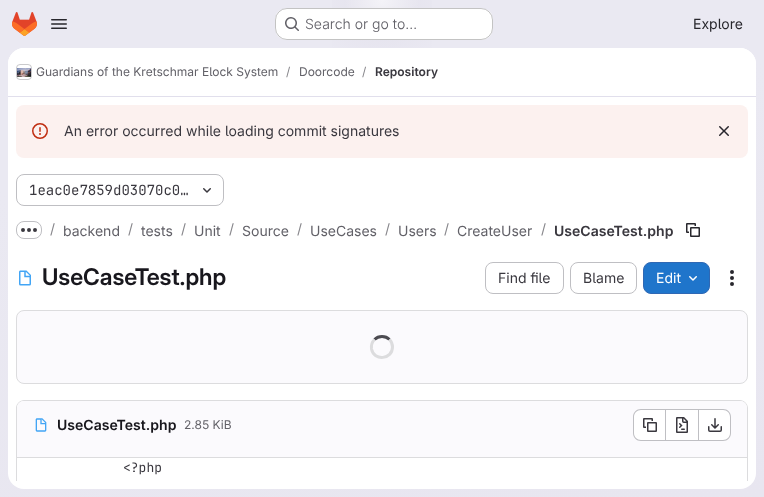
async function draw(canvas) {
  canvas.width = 764;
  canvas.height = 497;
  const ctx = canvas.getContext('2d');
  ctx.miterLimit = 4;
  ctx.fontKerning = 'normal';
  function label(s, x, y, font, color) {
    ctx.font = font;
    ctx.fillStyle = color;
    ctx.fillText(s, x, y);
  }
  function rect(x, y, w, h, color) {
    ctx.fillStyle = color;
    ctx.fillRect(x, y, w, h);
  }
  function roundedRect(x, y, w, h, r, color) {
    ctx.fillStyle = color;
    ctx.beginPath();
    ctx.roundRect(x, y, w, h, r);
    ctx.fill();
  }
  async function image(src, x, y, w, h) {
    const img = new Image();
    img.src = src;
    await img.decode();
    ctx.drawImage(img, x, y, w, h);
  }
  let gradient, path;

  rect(0, 0, 764, 497, '#fff');
  gradient = ctx.createLinearGradient(436, 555, 328, -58);
  gradient.addColorStop(0, '#e8e6f0');
  gradient.addColorStop(0.7, '#eae9f2');
  ctx.fillStyle = gradient;
  ctx.fillRect(0, 0, 764, 497);
  gradient = ctx.createRadialGradient(382, 0, 0, 382, 0, 382);
  gradient.addColorStop(0, '#e4e2ed');
  gradient.addColorStop(0.18, '#e4e2ed00');
  ctx.fillStyle = gradient;
  ctx.beginPath();
  ctx.rect(332, 0, 100, 48);
  ctx.save();
  ctx.clip();
  ctx.scale(1, 497 / 382);
  ctx.fillRect(0, 0, 764, 382);
  ctx.restore();
  gradient = ctx.createRadialGradient(382, 0, 0, 382, 0, 382);
  gradient.addColorStop(0, '#e4e2ec');
  gradient.addColorStop(0.13, '#e4e2ec00');
  ctx.fillStyle = gradient;
  ctx.beginPath();
  ctx.rect(369, 6, 26, 16);
  ctx.save();
  ctx.clip();
  ctx.scale(1, 497 / 382);
  ctx.fillRect(0, 0, 764, 382);
  ctx.restore();
  gradient = ctx.createRadialGradient(382, 0, 0, 382, 0, 627);
  gradient.addColorStop(0, '#ffffff99');
  gradient.addColorStop(0.06, '#ffffff00');
  ctx.fillStyle = gradient;
  ctx.fillRect(346, 0, 72, 8);
  await image('assets/img1.png', 12, 12, 25, 24);
  await image('assets/img2.png', 51, 19, 16, 10);
  roundedRect(275, 8, 218, 32, 12, '#fff');
  ctx.beginPath();
  ctx.roundRect(275.5, 8.5, 217, 31, 11.5);
  ctx.strokeStyle = '#0505063d';
  ctx.stroke();
  await image('assets/img3.png', 285, 17, 14, 14);
  label('Search or go to…', 305, 29, '300 14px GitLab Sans', '#626168');
  label('Explore', 693, 29, '14px GitLab Sans', '#28272d');
  roundedRect(8, 48, 748, 441, 16, '#fff');
  ctx.beginPath();
  ctx.roundRect(8, 48, 748, 49, [16, 16, 0, 0]);
  ctx.fill();
  rect(8, 96, 748, 1, '#e1dfec');
  ctx.beginPath();
  ctx.roundRect(16.5, 64.5, 15, 15, 3.5);
  ctx.strokeStyle = '#dcdcde';
  ctx.stroke();
  await image('assets/img4.png', 17, 68, 14, 9);
  ctx.beginPath();
  ctx.roundRect(16.5, 64.5, 15, 15, 3.5);
  ctx.strokeStyle = '#05050614';
  ctx.stroke();
  label('Guardians of the Kretschmar Elock System', 36, 76, '12px GitLab Sans', '#626168');
  label('/', 286, 76, '12px GitLab Sans', '#89888d');
  label('Doorcode', 299, 76, '12px GitLab Sans', '#626168');
  label('/', 362, 76, '12px GitLab Sans', '#89888d');
  label('Repository', 375, 76, '600 12px GitLab Sans', '#3a383f');
  roundedRect(16, 105, 732, 53, 8, '#fcf1ef');
  await image('assets/img5.png', 32, 123, 16, 16);
  label('An error occurred while loading commit signatures', 64, 136, '14px GitLab Sans', '#3a383f');
  await image('assets/img6.png', 719, 126, 10, 10);
  ctx.beginPath();
  ctx.roundRect(16.5, 174.5, 207, 31, 7.5);
  ctx.strokeStyle = '#bfbfc3';
  ctx.stroke();
  label('1eac0e7859d03070c0…', 29, 195, '14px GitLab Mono', '#3a383f');
  await image('assets/img7.png', 203, 188, 8, 5);
  ctx.beginPath();
  ctx.roundRect(16.5, 221.5, 25, 17, 7.5);
  ctx.stroke();
  await image('assets/img8.png', 21, 228, 16, 4);
  label('/', 50, 234, '14px GitLab Sans', '#89888d');
  label('backend', 63, 236, '14px GitLab Sans', '#626168');
  label('/', 128, 234, '14px GitLab Sans', '#89888d');
  label('tests', 141, 236, '14px GitLab Sans', '#626168');
  label('/', 181, 234, '14px GitLab Sans', '#89888d');
  label('Unit', 194, 236, '14px GitLab Sans', '#626168');
  label('/', 229, 234, '14px GitLab Sans', '#89888d');
  label('Source', 242, 236, '14px GitLab Sans', '#626168');
  label('/', 297, 234, '14px GitLab Sans', '#89888d');
  label('UseCases', 310, 236, '14px GitLab Sans', '#626168');
  label('/', 385, 234, '14px GitLab Sans', '#89888d');
  label('Users', 398, 236, '14px GitLab Sans', '#626168');
  label('/', 444, 234, '14px GitLab Sans', '#89888d');
  label('CreateUser', 457, 236, '14px GitLab Sans', '#626168');
  label('/', 541, 234, '14px GitLab Sans', '#89888d');
  label('UseCaseTest.php', 554, 236, '600 14px GitLab Sans', '#3a383f');
  await image('assets/img9.png', 686, 223, 14, 14);
  await image('assets/img10.png', 19, 270, 12, 16);
  label('UseCaseTest.php', 42, 285, '600 23px "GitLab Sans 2"', '#18171d');
  ctx.beginPath();
  ctx.roundRect(485.5, 262.5, 78, 31, 7.5);
  ctx.stroke();
  label('Find file', 498, 283, '14px GitLab Sans', '#3a383f');
  ctx.beginPath();
  ctx.roundRect(570.5, 262.5, 66, 31, 7.5);
  ctx.stroke();
  label('Blame', 583, 283, '14px GitLab Sans', '#3a383f');
  ctx.fillStyle = '#1f75cb';
  ctx.beginPath();
  ctx.roundRect(643.5, 262.5, 66, 31, 7.5);
  ctx.fill();
  ctx.strokeStyle = '#2f68b4';
  ctx.stroke();
  label('Edit', 656, 283, '14px GitLab Sans', '#fff');
  await image('assets/img11.png', 689, 276, 8, 5);
  await image('assets/img12.png', 730, 270, 4, 16);
  ctx.fillStyle = '#fbfafd';
  ctx.beginPath();
  ctx.roundRect(16.5, 310.5, 731, 73, 7.5);
  ctx.fill();
  ctx.strokeStyle = '#dcdcde';
  ctx.stroke();
  path = new Path2D('M374.5 339.5C378.5 335.5 385.5 335.5 389.5 339.5');
  ctx.strokeStyle = '#4c4b51';
  ctx.lineWidth = 3;
  ctx.stroke(path);
  path = new Path2D('M389.5 339.5C391.5 341.5 392.5 344 392.5 347C392.5 359.5 374 361.5 371.5 349C371 345.5 372 342 374.5 339.5');
  ctx.strokeStyle = '#dcdcde';
  ctx.stroke(path);
  ctx.save();
  ctx.beginPath();
  ctx.rect(8, 97, 748, 384);
  ctx.clip();
  ctx.fillStyle = '#dcdcde';
  path = new Path2D('M24 400C20 400 16 404 16 408V487H17V408C17 404 20 401 24 401H740C744 401 747 404 747 408V487H748V408C748 404 744 400 740 400Z');
  ctx.fill(path);
  ctx.restore();
  ctx.beginPath();
  ctx.roundRect(17, 401, 730, 57, [7, 7, 0, 0]);
  ctx.fill();
  rect(17, 457, 730, 1, '#dcdcde');
  await image('assets/img13.png', 35, 418, 12, 14);
  label('UseCaseTest.php', 57, 430, '600 14px GitLab Sans', '#18171d');
  label('2.85 KiB', 184, 429, '12px GitLab Sans', '#626168');
  ctx.fillStyle = '#fff';
  ctx.beginPath();
  ctx.roundRect(634, 410, 31, 30, [7, 0, 0, 7]);
  ctx.fill();
  ctx.fillStyle = '#bfbfc3';
  path = new Path2D('M641 409H665V441H641C636.5 441 633 437.5 633 433V417C633 412.5 636.5 409 641 409ZM641 410H665V440H641C637 440 634 437 634 433V417C634 413 637 410 641 410Z');
  ctx.fill(path, 'evenodd');
  await image('assets/img14.png', 643, 418, 14, 14);
  rect(666, 410, 32, 30, '#fff');
  rect(666, 409, 32, 1, '#bfbfc3');
  rect(666, 440, 32, 1, '#bfbfc3');
  rect(665, 409, 1, 32, '#bfbfc3');
  await image('assets/img15.png', 676, 417, 12, 16);
  ctx.fillStyle = '#fff';
  ctx.beginPath();
  ctx.roundRect(699, 410, 31, 30, [0, 7, 7, 0]);
  ctx.fill();
  ctx.fillStyle = '#bfbfc3';
  path = new Path2D('M699 409H723C727.5 409 731 412.5 731 417V433C731 437.5 727.5 441 723 441H699ZM699 410H723C727 410 730 413 730 417V433C730 437 727 440 723 440H699Z');
  ctx.fill(path, 'evenodd');
  rect(698, 409, 1, 32, '#bfbfc3');
  await image('assets/img16.png', 708, 418, 14, 14);
  label('<?php', 123, 472, '13px GitLab Mono', '#3a383f');
}

draw(document.querySelector('canvas'));
